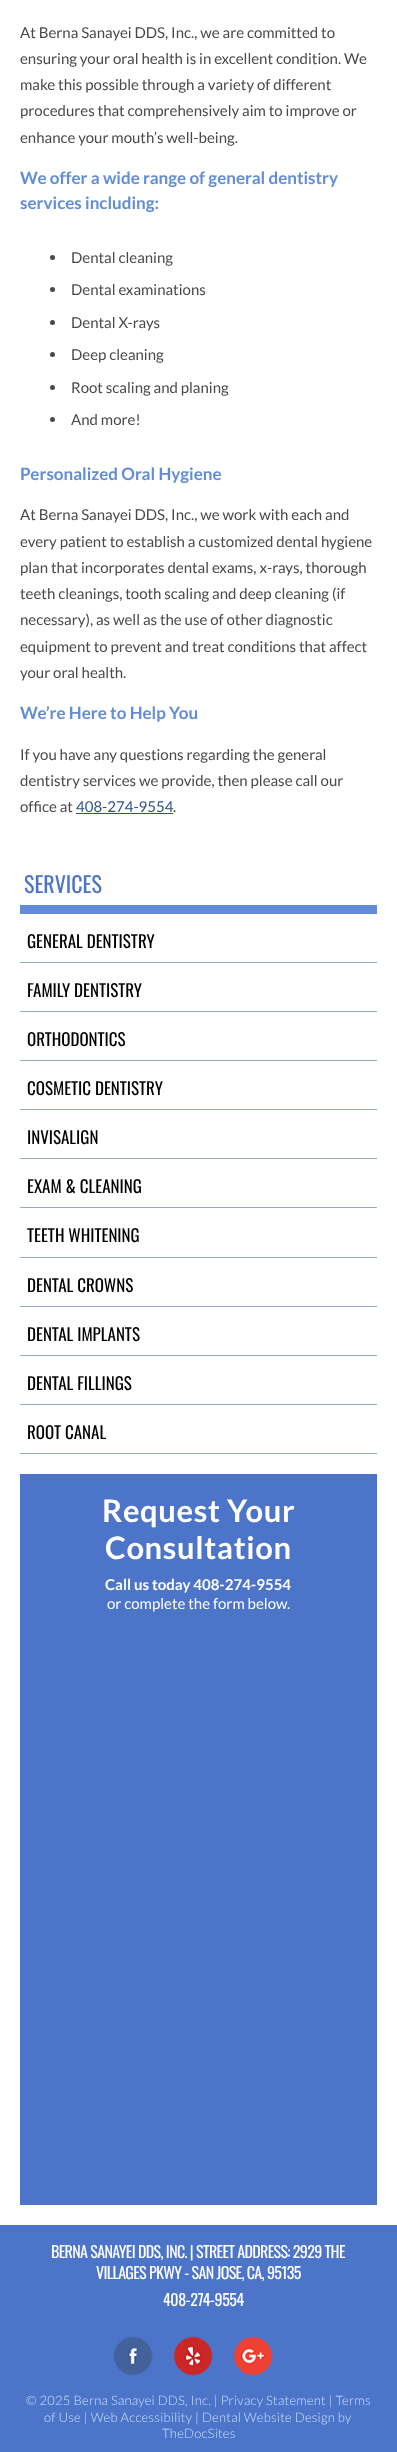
async function draw(canvas) {
  canvas.width = 397;
  canvas.height = 2452;
  const ctx = canvas.getContext('2d');
  ctx.miterLimit = 4;
  ctx.fontKerning = 'normal';
  function label(s, x, y, font, color) {
    ctx.font = font;
    ctx.fillStyle = color;
    ctx.fillText(s, x, y);
  }
  function rect(x, y, w, h, color) {
    ctx.fillStyle = color;
    ctx.fillRect(x, y, w, h);
  }
  async function image(src, x, y, w, h) {
    const img = new Image();
    img.src = src;
    await img.decode();
    ctx.drawImage(img, x, y, w, h);
  }

  rect(0, 0, 397, 2452, '#fff');
  label('At Berna Sanayei DDS, Inc., we are committed to', 20, 38, '15px Lato', '#494949');
  label('ensuring your oral health is in excellent condition. We', 20, 64, '15px Lato', '#494949');
  label('make this possible through a variety of different', 20, 90, '15px Lato', '#494949');
  label('procedures that comprehensively aim to improve or', 20, 116, '15px Lato', '#494949');
  label('enhance your mouth’s well-being.', 20, 143, '15px Lato', '#494949');
  label('We offer a wide range of general dentistry', 20, 184, 'bold 17px Lato', '#628dd6');
  label('services including:', 20, 209, 'bold 17px Lato', '#628dd6');
  ctx.fillStyle = '#494949';
  ctx.beginPath();
  ctx.arc(52.5, 257.5, 2.5, 0, 2 * Math.PI);
  ctx.fill();
  label('Dental cleaning', 71, 263, '15px Lato', '#494949');
  ctx.beginPath();
  ctx.arc(52.5, 289.5, 2.5, 0, 2 * Math.PI);
  ctx.fill();
  label('Dental examinations', 71, 295, '15px Lato', '#494949');
  ctx.beginPath();
  ctx.arc(52.5, 322.5, 2.5, 0, 2 * Math.PI);
  ctx.fill();
  label('Dental X-rays', 71, 328, '15px Lato', '#494949');
  ctx.beginPath();
  ctx.arc(52.5, 354.5, 2.5, 0, 2 * Math.PI);
  ctx.fill();
  label('Deep cleaning', 71, 360, '15px Lato', '#494949');
  ctx.beginPath();
  ctx.arc(52.5, 387.5, 2.5, 0, 2 * Math.PI);
  ctx.fill();
  label('Root scaling and planing', 71, 393, '15px Lato', '#494949');
  ctx.beginPath();
  ctx.arc(52.5, 419.5, 2.5, 0, 2 * Math.PI);
  ctx.fill();
  label('And more!', 71, 425, '15px Lato', '#494949');
  label('Personalized Oral Hygiene', 20, 480, 'bold 17px Lato', '#628dd6');
  label('At Berna Sanayei DDS, Inc., we work with each and', 20, 520, '15px Lato', '#494949');
  label('every patient to establish a customized dental hygiene', 20, 547, '15px Lato', '#494949');
  label('plan that incorporates dental exams, x-rays, thorough', 20, 573, '15px Lato', '#494949');
  label('teeth cleanings, tooth scaling and deep cleaning (if', 20, 599, '15px Lato', '#494949');
  label('necessary), as well as the use of other diagnostic', 20, 625, '15px Lato', '#494949');
  label('equipment to prevent and treat conditions that affect', 20, 652, '15px Lato', '#494949');
  label('your oral health.', 20, 678, '15px Lato', '#494949');
  label('We’re Here to Help You', 20, 719, 'bold 17px Lato', '#628dd6');
  label('If you have any questions regarding the general', 20, 760, '15px Lato', '#494949');
  label('dentistry services we provide, then please call our', 20, 786, '15px Lato', '#494949');
  label('office at', 20, 812, '15px Lato', '#494949');
  label('408-274-9554', 76, 812, '15px Lato', '#305285');
  rect(76, 813, 97, 1, '#305285');
  label('.', 173, 812, '15px Lato', '#494949');
  label('SERVICES', 24, 893, '22px Oswald', '#4c74c9');
  rect(20, 905, 357, 9, '#628dd6');
  rect(20, 962, 357, 1, '#98aac1');
  label('GENERAL DENTISTRY', 27, 948, '17px Oswald', '#000');
  rect(20, 1011, 357, 1, '#98aac1');
  label('FAMILY DENTISTRY', 27, 997, '17px Oswald', '#000');
  rect(20, 1060, 357, 1, '#98aac1');
  label('ORTHODONTICS', 27, 1046, '17px Oswald', '#000');
  rect(20, 1109, 357, 1, '#98aac1');
  label('COSMETIC DENTISTRY', 27, 1095, '17px Oswald', '#000');
  rect(20, 1158, 357, 1, '#98aac1');
  label('INVISALIGN', 27, 1144, '17px Oswald', '#000');
  rect(20, 1207, 357, 1, '#98aac1');
  label('EXAM & CLEANING', 27, 1193, '17px Oswald', '#000');
  rect(20, 1257, 357, 1, '#98aac1');
  label('TEETH WHITENING', 27, 1242, '17px Oswald', '#000');
  rect(20, 1306, 357, 1, '#98aac1');
  label('DENTAL CROWNS', 27, 1292, '17px Oswald', '#000');
  rect(20, 1355, 357, 1, '#98aac1');
  label('DENTAL IMPLANTS', 27, 1341, '17px Oswald', '#000');
  rect(20, 1404, 357, 1, '#98aac1');
  label('DENTAL FILLINGS', 27, 1390, '17px Oswald', '#000');
  rect(20, 1453, 357, 1, '#98aac1');
  label('ROOT CANAL', 27, 1439, '17px Oswald', '#000');
  rect(20, 1474, 357, 731, '#4c74c9');
  ctx.letterSpacing = '0.6px';
  label('Request Your', 102, 1522, 'bold 31px Lato', '#fff');
  label('Consultation', 105, 1559, 'bold 31px Lato', '#fff');
  ctx.letterSpacing = '0px';
  label('Call us today 408-274-9554', 105, 1590, 'bold 15px Lato', '#fff');
  label('or complete the form below.', 107, 1609, '15px Lato', '#fff');
  rect(0, 2225, 397, 227, '#4c74c9');
  ctx.letterSpacing = '-0.65px';
  label('BERNA SANAYEI DDS, INC. | STREET ADDRESS: 2929 THE', 51, 2258, '16px Oswald', '#fff');
  label('VILLAGES PKWY - SAN JOSE, CA, 95135', 96, 2279, '16px Oswald', '#fff');
  ctx.letterSpacing = '-0.4px';
  label('408-274-9554', 163, 2306, '16px Oswald', '#fff');
  await image('assets/img1.png', 113, 2336, 40, 40);
  await image('assets/img2.png', 173, 2336, 40, 40);
  await image('assets/img3.png', 233, 2336, 40, 40);
  ctx.letterSpacing = '0.25px';
  label('© 2025 Berna Sanayei DDS, Inc. | Privacy Statement | Terms', 26, 2405, '300 13px Lato', '#c6e0ff');
  label('of Use | Web Accessibility | Dental Website Design by', 44, 2422, '300 13px Lato', '#c6e0ff');
  label('TheDocSites', 162, 2438, '300 13px Lato', '#c6e0ff');
}

draw(document.querySelector('canvas'));
